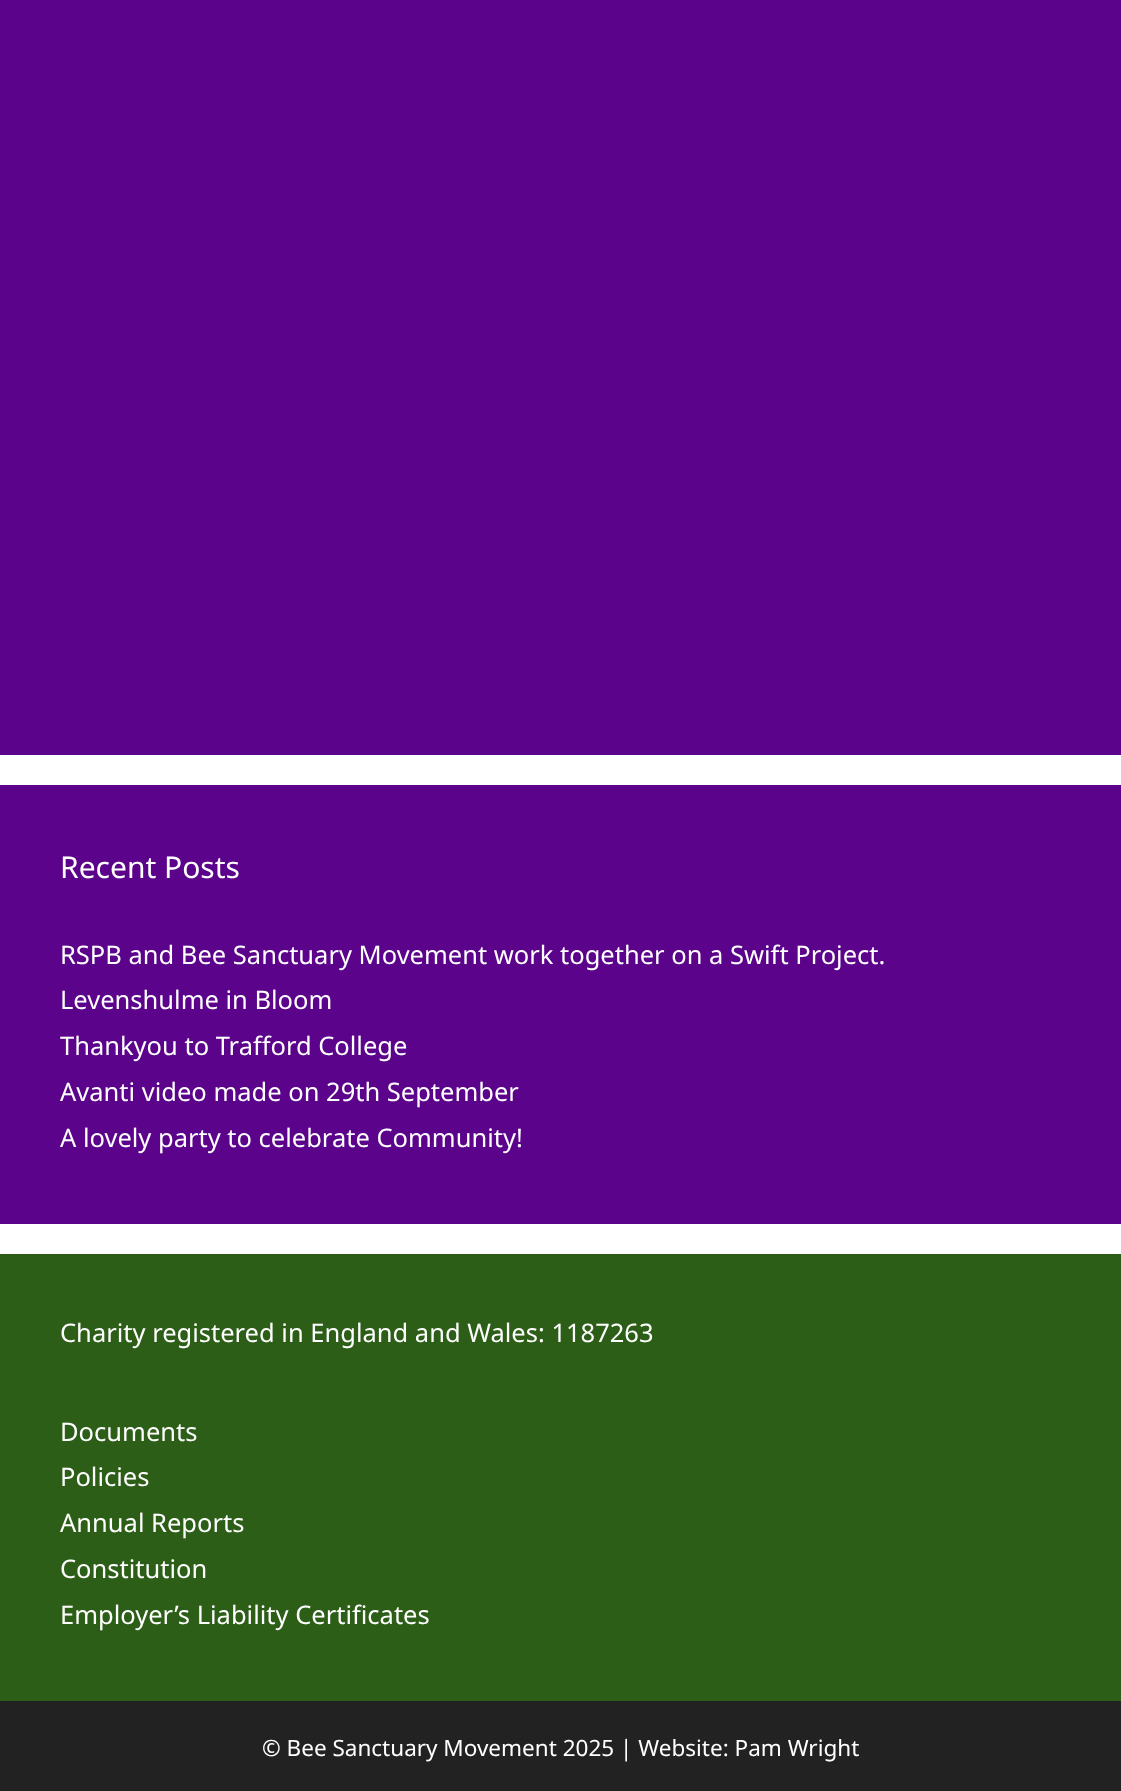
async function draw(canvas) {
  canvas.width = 1121;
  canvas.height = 1791;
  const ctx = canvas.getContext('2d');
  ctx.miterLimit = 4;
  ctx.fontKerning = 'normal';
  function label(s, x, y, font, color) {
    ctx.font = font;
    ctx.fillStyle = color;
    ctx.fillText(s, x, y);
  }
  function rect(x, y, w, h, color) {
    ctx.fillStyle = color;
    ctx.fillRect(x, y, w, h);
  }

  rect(0, 0, 1121, 1791, '#fff');
  rect(0, 0, 1121, 755, '#5c038c');
  rect(0, 785, 1121, 439, '#5c038c');
  label('Recent Posts', 60, 878, '30px Noto Sans', '#fff');
  label('RSPB and Bee Sanctuary Movement work together on a Swift Project.', 60, 964, '25.5px Noto Sans', '#fff');
  label('Levenshulme in Bloom', 60, 1009, '25.5px Noto Sans', '#fff');
  label('Thankyou to Trafford College', 60, 1055, '25.5px Noto Sans', '#fff');
  label('Avanti video made on 29th September', 60, 1101, '25.5px Noto Sans', '#fff');
  label('A lovely party to celebrate Community!', 60, 1147, '25.5px Noto Sans', '#fff');
  rect(0, 1254, 1121, 447, '#2c5e17');
  label('Charity registered in England and Wales: 1187263', 60, 1342, '25.5px Noto Sans', '#fff');
  label('Documents', 60, 1441, '25.5px Noto Sans', '#fff');
  label('Policies', 60, 1486, '25.5px Noto Sans', '#fff');
  label('Annual Reports', 60, 1532, '25.5px Noto Sans', '#fff');
  label('Constitution', 60, 1578, '25.5px Noto Sans', '#fff');
  label('Employer’s Liability Certificates', 60, 1624, '25.5px Noto Sans', '#fff');
  rect(0, 1701, 1121, 90, '#222');
  label('© Bee Sanctuary Movement 2025 | Website: Pam Wright', 262, 1756, '22.5px Noto Sans', '#fff');
}

draw(document.querySelector('canvas'));
